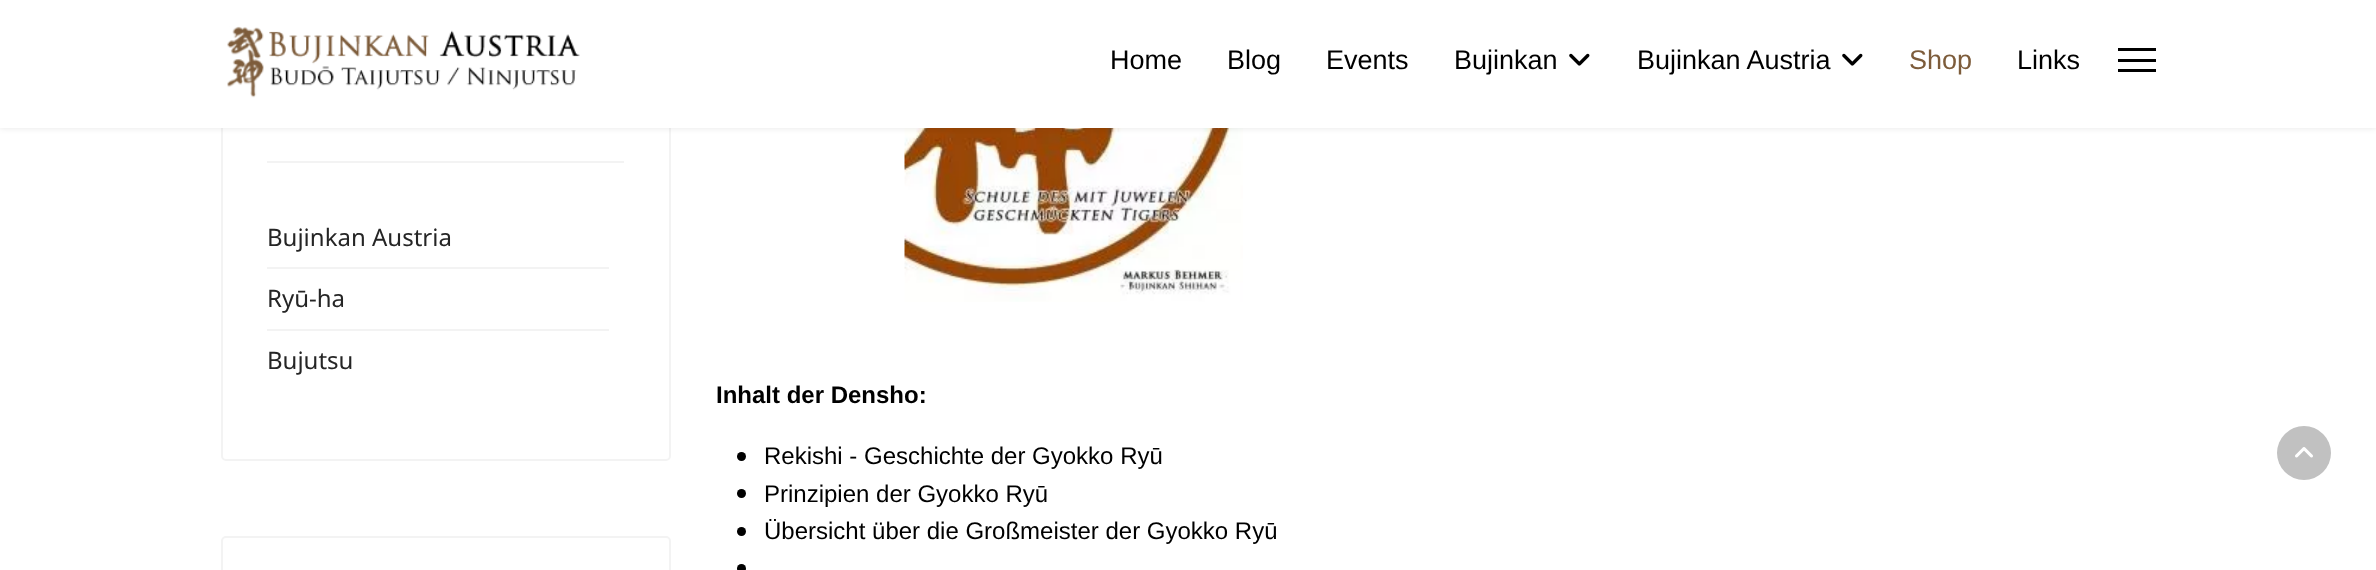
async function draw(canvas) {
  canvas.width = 2376;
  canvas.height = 570;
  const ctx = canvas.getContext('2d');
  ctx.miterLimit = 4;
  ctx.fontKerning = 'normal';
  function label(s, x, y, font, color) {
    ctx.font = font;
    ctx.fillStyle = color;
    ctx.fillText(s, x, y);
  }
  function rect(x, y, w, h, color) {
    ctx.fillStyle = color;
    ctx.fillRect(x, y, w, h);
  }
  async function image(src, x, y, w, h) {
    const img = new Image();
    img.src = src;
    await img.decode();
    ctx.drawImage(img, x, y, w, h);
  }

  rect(0, 0, 2376, 570, '#fff');
  ctx.beginPath();
  ctx.roundRect(222, 45, 448, 415, 4);
  ctx.strokeStyle = '#f3f3f3';
  ctx.lineWidth = 2;
  ctx.stroke();
  await image('assets/img3.png', 904, 128, 339, 174);
  ctx.fillStyle = '#0000001a';
  ctx.filter = 'blur(3px)';
  ctx.beginPath();
  ctx.rect(0, 0, 2376, 128);
  ctx.fill();
  ctx.filter = 'none';
  rect(0, 0, 2376, 128, '#fff');
  await image('assets/img1.png', 227, 26, 353, 72);
  label('Home', 1110, 69, '27px Liberation Sans', '#000');
  label('Blog', 1227, 69, '27px Liberation Sans', '#000');
  label('Events', 1326, 69, '27px Liberation Sans', '#000');
  label('Bujinkan', 1454, 69, '27px Liberation Sans', '#000');
  await image('assets/img2.png', 1569, 53, 21, 13);
  label('Bujinkan Austria', 1637, 69, '27px Liberation Sans', '#000');
  await image('assets/img2.png', 1842, 53, 21, 13);
  label('Shop', 1909, 69, '27px Liberation Sans', '#7d5c3b');
  label('Links', 2017, 69, '27px Liberation Sans', '#000');
  rect(2118, 48, 38, 3, '#000');
  rect(2118, 59, 38, 3, '#000');
  rect(2118, 69, 38, 3, '#000');
  rect(267, 161, 357, 2, '#f3f3f3');
  rect(267, 267, 342, 2, '#f3f3f3');
  label('Bujinkan Austria', 267, 246, '24px Noto Sans', '#252525');
  rect(267, 329, 342, 2, '#f3f3f3');
  label('Ryū-ha', 267, 307, '24px Noto Sans', '#252525');
  label('Bujutsu', 267, 369, '24px Noto Sans', '#252525');
  ctx.beginPath();
  ctx.roundRect(222, 537, 448, 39, 4);
  ctx.stroke();
  label('Inhalt der Densho:', 716, 403, 'bold 24px Liberation Sans', '#000');
  ctx.beginPath();
  ctx.arc(741.5, 456.5, 4.5, 0, 2 * Math.PI);
  ctx.fill();
  label('Rekishi - Geschichte der Gyokko Ryū', 764, 464, '24px Liberation Sans', '#000');
  ctx.beginPath();
  ctx.arc(741.5, 493.5, 4.5, 0, 2 * Math.PI);
  ctx.fill();
  label('Prinzipien der Gyokko Ryū', 764, 502, '24px Liberation Sans', '#000');
  ctx.beginPath();
  ctx.arc(741.5, 531.5, 4.5, 0, 2 * Math.PI);
  ctx.fill();
  label('Übersicht über die Großmeister der Gyokko Ryū', 764, 539, '24px Liberation Sans', '#000');
  ctx.beginPath();
  ctx.arc(741.5, 568.5, 4.5, 0, 2 * Math.PI);
  ctx.fill();
  ctx.fillStyle = '#c1c1c1';
  ctx.beginPath();
  ctx.arc(2304, 453, 27, 0, 2 * Math.PI);
  ctx.fill();
  await image('assets/img4.png', 2295, 447, 18, 11);
}

draw(document.querySelector('canvas'));
